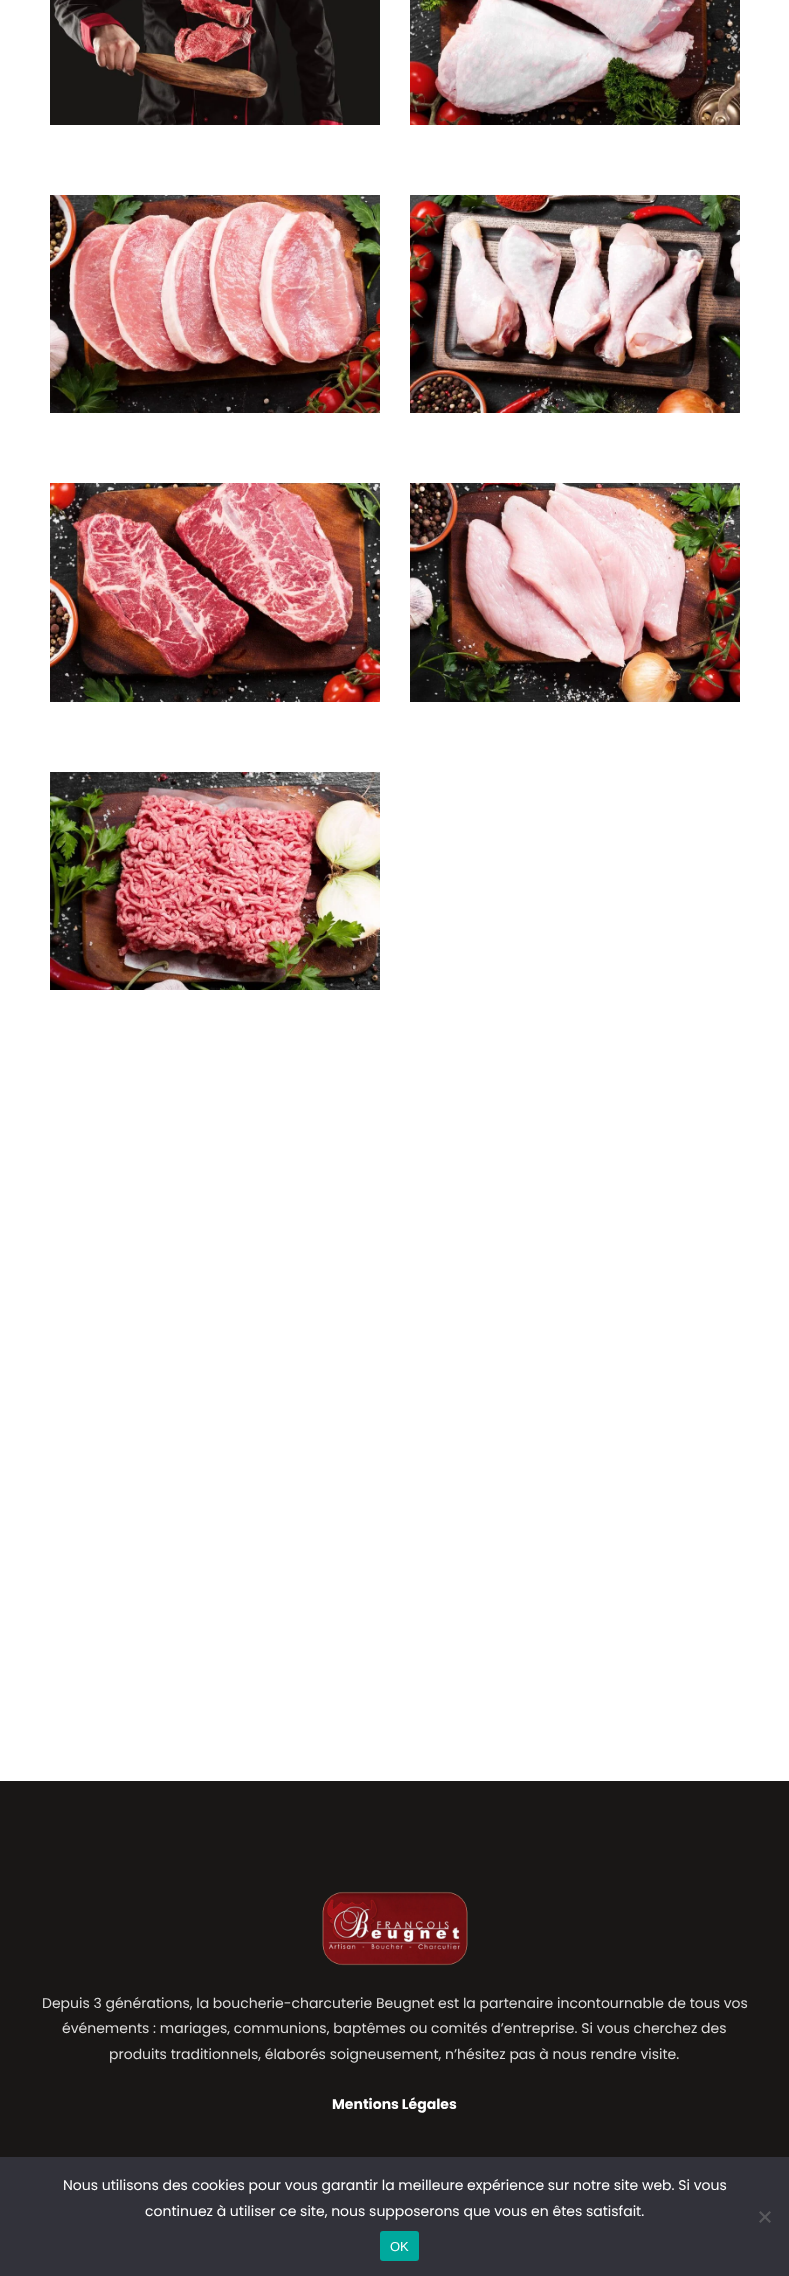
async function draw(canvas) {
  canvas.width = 789;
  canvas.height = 2276;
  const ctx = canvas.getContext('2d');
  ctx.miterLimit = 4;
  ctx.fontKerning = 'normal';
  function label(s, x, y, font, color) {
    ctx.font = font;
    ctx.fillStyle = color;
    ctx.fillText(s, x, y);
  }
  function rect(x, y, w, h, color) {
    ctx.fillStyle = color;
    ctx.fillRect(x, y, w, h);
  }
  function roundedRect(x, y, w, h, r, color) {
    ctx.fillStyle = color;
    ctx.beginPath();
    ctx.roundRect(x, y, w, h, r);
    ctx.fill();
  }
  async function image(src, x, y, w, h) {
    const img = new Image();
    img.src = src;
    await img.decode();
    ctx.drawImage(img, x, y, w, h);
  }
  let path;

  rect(0, 0, 789, 2276, '#fff');
  await image('assets/img1.png', 50, 0, 330, 125);
  await image('assets/img2.png', 410, 0, 330, 125);
  await image('assets/img3.png', 50, 195, 330, 218);
  await image('assets/img4.png', 410, 195, 330, 218);
  await image('assets/img5.png', 50, 483, 330, 219);
  await image('assets/img6.png', 410, 483, 330, 219);
  await image('assets/img7.png', 50, 772, 330, 218);
  rect(0, 1781, 789, 376, '#191716');
  await image('assets/img8.png', 322, 1891, 146, 75);
  label('Depuis 3 générations, la boucherie-charcuterie Beugnet est la partenaire incontournable de tous vos', 42, 2008, '14px Poppins', '#dddcdc');
  label('événements : mariages, communions, baptêmes ou comités d’entreprise. Si vous cherchez des', 62, 2033, '14px Poppins', '#dddcdc');
  label('produits traditionnels, élaborés soigneusement, n’hésitez pas à nous rendre visite.', 109, 2059, '14px Poppins', '#dddcdc');
  label('Mentions Légales', 332, 2109, 'bold 14px Poppins', '#fff');
  rect(0, 2157, 789, 119, '#32323a');
  label('Nous utilisons des cookies pour vous garantir la meilleure expérience sur notre site web. Si vous', 63, 2190, '14px Poppins', '#fff');
  label('continuez à utiliser ce site, nous supposerons que vous en êtes satisfait.', 145, 2216, '14px Poppins', '#fff');
  ctx.fillStyle = '#59595d';
  path = new Path2D('M769.5 2211L771 2212.5L760.5 2223L759 2221.5Z');
  ctx.fill(path);
  path = new Path2D('M759 2212.5L760.5 2211L771 2221.5L769.5 2223Z');
  ctx.fill(path);
  roundedRect(380, 2231, 39, 30, 3, '#00a99d');
  label('OK', 390, 2251, '13px Liberation Sans', '#fff');
}

draw(document.querySelector('canvas'));
